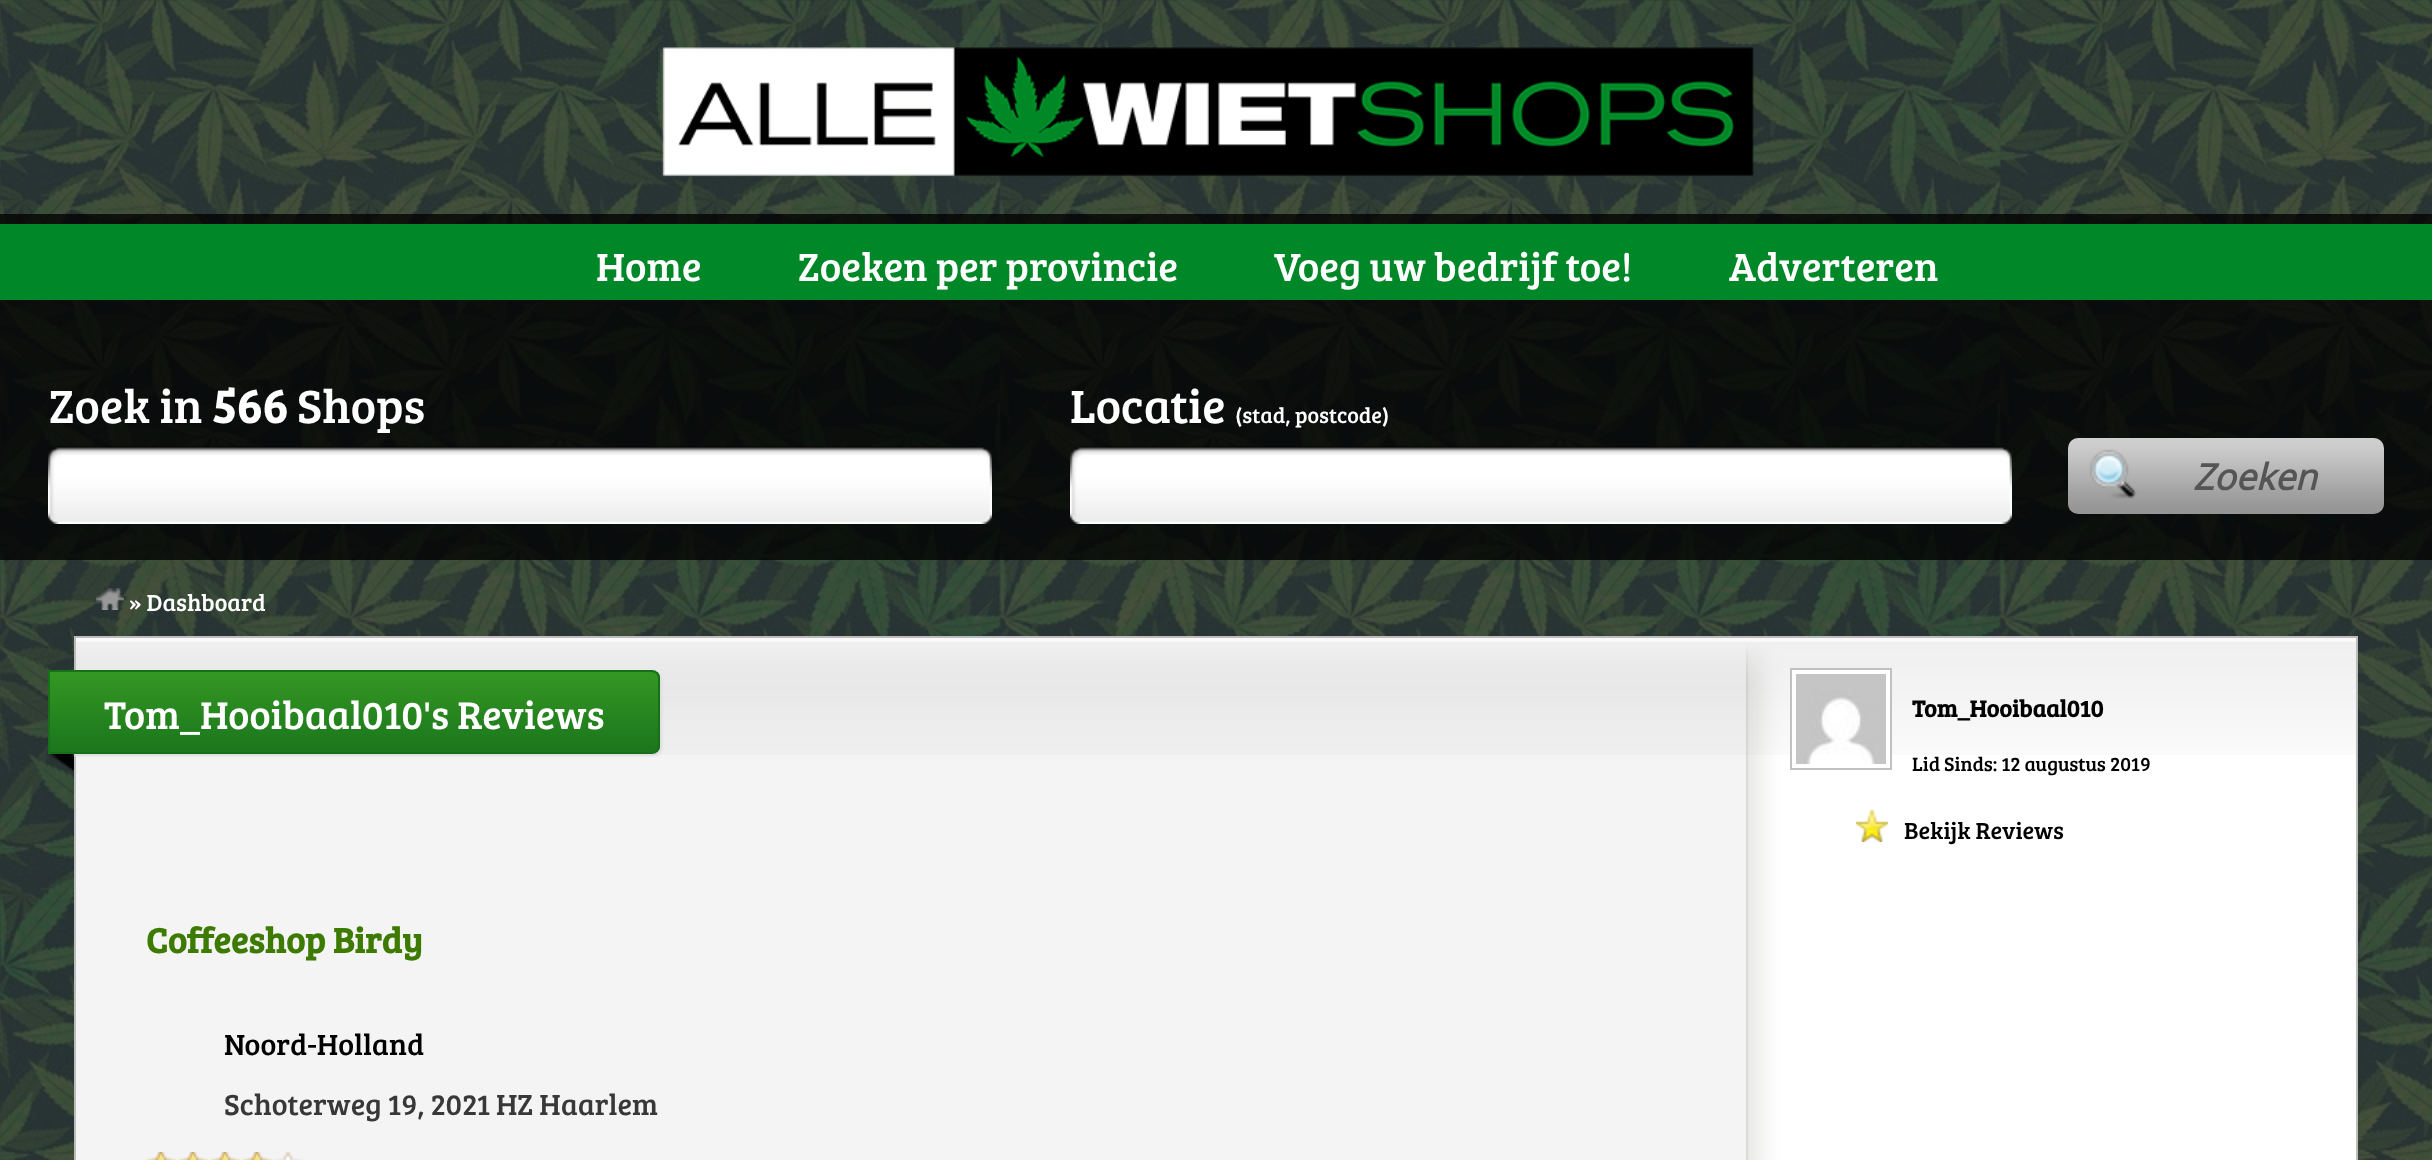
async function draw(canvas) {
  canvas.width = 2432;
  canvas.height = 1160;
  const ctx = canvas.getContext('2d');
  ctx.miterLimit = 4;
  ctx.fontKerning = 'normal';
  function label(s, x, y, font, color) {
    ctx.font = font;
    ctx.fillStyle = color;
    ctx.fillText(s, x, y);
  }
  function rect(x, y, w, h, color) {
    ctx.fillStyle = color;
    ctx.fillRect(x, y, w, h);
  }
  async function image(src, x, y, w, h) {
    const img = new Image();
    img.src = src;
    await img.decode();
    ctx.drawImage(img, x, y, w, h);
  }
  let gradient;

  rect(0, 0, 2432, 1160, '#fff');
  await image('assets/img1.png', 0, 0, 2432, 1160);
  await image('assets/img2.png', 662, 47, 1092, 130);
  rect(0, 214, 2432, 346, '#000000c4');
  rect(0, 224, 2432, 76, '#008727');
  label('Home', 596, 281, '40.75px Bree Serif', '#fff');
  label('Zoeken per provincie', 798, 281, '40.75px Bree Serif', '#fff');
  label('Voeg uw bedrijf toe!', 1274, 281, '40.75px Bree Serif', '#fff');
  label('Adverteren', 1729, 281, '40.75px Bree Serif', '#fff');
  label('Zoek in', 49, 423, '48px Bree Serif', '#fff');
  label('566', 212, 423, 'bold 48px Bree Serif', '#fff');
  label('Shops', 297, 423, '48px Bree Serif', '#fff');
  await image('assets/img3.png', 48, 446, 14, 78);
  await image('assets/img4.png', 62, 446, 916, 78);
  await image('assets/img5.png', 978, 447, 14, 77);
  label('Locatie', 1070, 423, '48px Bree Serif', '#fff');
  label('(stad, postcode)', 1235, 423, '22px Bree Serif', '#fff');
  await image('assets/img6.png', 1070, 446, 14, 78);
  await image('assets/img7.png', 1084, 446, 914, 78);
  await image('assets/img8.png', 1998, 446, 14, 78);
  await image('assets/img9.png', 2068, 438, 316, 76);
  label('Zoeken', 2193, 490, 'italic bold 36px Open Sans', '#555');
  await image('assets/img10.png', 96, 588, 28, 22);
  label('» Dashboard', 129, 611, '24px Bree Serif', '#fff');
  rect(76, 643, 1670, 517, '#f4f4f4');
  await image('assets/img11.png', 1746, 643, 610, 517);
  ctx.strokeStyle = '#bdbcbd';
  ctx.lineWidth = 2;
  ctx.strokeRect(75, 637, 2282, 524);
  await image('assets/img12.png', 76, 638, 2280, 117);
  ctx.fillStyle = '#ddd';
  ctx.filter = 'blur(1px)';
  ctx.beginPath();
  ctx.roundRect(50, 672, 612, 84, 8);
  ctx.fill();
  ctx.filter = 'none';
  ctx.save();
  ctx.beginPath();
  ctx.roundRect(48, 670, 612, 84, [0, 8, 8, 0]);
  ctx.clip();
  gradient = ctx.createLinearGradient(50, 672, 50, 752);
  gradient.addColorStop(0, '#349722');
  gradient.addColorStop(1, '#1b761d');
  ctx.fillStyle = gradient;
  ctx.fillRect(50, 672, 610, 80);
  ctx.restore();
  ctx.beginPath();
  ctx.roundRect(49, 671, 610, 82, [0, 7, 7, 0]);
  ctx.strokeStyle = '#177019';
  ctx.stroke();
  await image('assets/img13.png', 50, 754, 24, 18);
  label('Tom_Hooibaal010\'s Reviews', 104, 729, '40px Bree Serif', '#fff');
  label('Coffeeshop Birdy', 146, 953, 'bold 36px Bree Serif', '#3d7a00');
  label('Noord-Holland', 224, 1055, '30px Bree Serif', '#000');
  label('Schoterweg 19, 2021 HZ Haarlem', 224, 1115, '30px Bree Serif', '#383838');
  await image('assets/img14.png', 146, 1152, 156, 8);
  rect(1792, 670, 98, 85, '#fff');
  ctx.strokeStyle = '#c1c1c1';
  ctx.strokeRect(1791, 669, 100, 100);
  await image('assets/img15.png', 1796, 674, 90, 90);
  label('Tom_Hooibaal010', 1912, 717, 'bold 24px Bree Serif', '#000');
  label('Lid Sinds: 12 augustus 2019', 1912, 771, '20px Bree Serif', '#000');
  await image('assets/img16.png', 1856, 810, 32, 32);
  label('Bekijk Reviews', 1904, 839, '24px Bree Serif', '#000');
}

draw(document.querySelector('canvas'));
